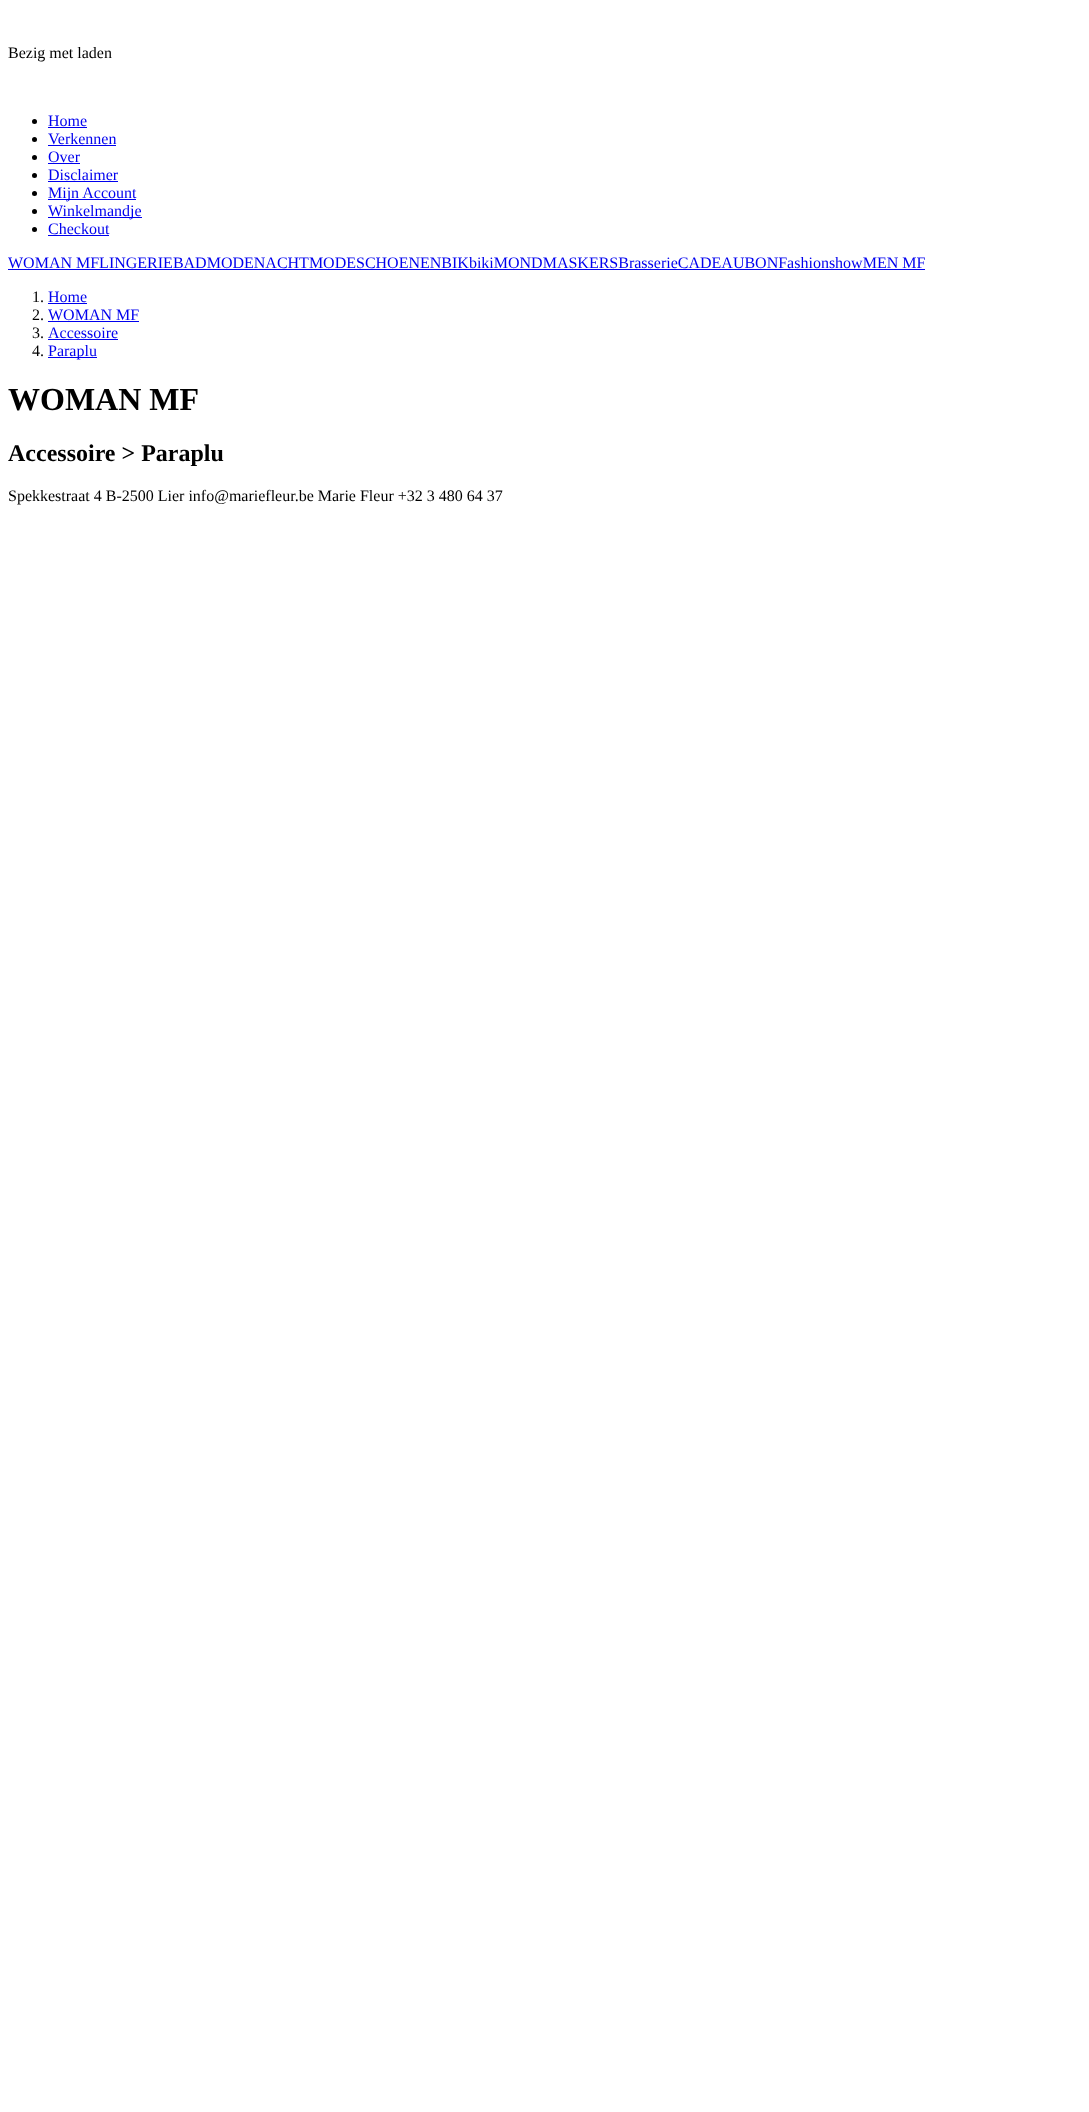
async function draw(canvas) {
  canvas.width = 1089;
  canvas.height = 2112;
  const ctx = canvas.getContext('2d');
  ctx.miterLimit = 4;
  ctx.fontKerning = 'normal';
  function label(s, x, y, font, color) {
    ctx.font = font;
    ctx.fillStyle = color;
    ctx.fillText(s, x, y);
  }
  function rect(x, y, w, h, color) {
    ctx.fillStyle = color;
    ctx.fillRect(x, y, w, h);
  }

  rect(0, 0, 1089, 2112, '#fff');
  label('Bezig met laden', 8, 58, '16px Liberation Serif', '#000');
  ctx.beginPath();
  ctx.arc(34.5, 121.5, 2.5, 0, 2 * Math.PI);
  ctx.fill();
  label('Home', 48, 126, '16px Liberation Serif', '#00e');
  rect(48, 127, 39, 1, '#00e');
  ctx.fillStyle = '#000';
  ctx.beginPath();
  ctx.arc(34.5, 139.5, 2.5, 0, 2 * Math.PI);
  ctx.fill();
  label('Verkennen', 48, 144, '16px Liberation Serif', '#00e');
  rect(48, 145, 68, 1, '#00e');
  ctx.fillStyle = '#000';
  ctx.beginPath();
  ctx.arc(34.5, 157.5, 2.5, 0, 2 * Math.PI);
  ctx.fill();
  label('Over', 48, 162, '16px Liberation Serif', '#00e');
  rect(48, 163, 32, 1, '#00e');
  ctx.fillStyle = '#000';
  ctx.beginPath();
  ctx.arc(34.5, 175.5, 2.5, 0, 2 * Math.PI);
  ctx.fill();
  label('Disclaimer', 48, 180, '16px Liberation Serif', '#00e');
  rect(48, 181, 70, 1, '#00e');
  ctx.fillStyle = '#000';
  ctx.beginPath();
  ctx.arc(34.5, 193.5, 2.5, 0, 2 * Math.PI);
  ctx.fill();
  rect(48, 199, 88, 1, '#00e');
  label('Mijn Account', 48, 198, '16px Liberation Serif', '#00e');
  ctx.fillStyle = '#000';
  ctx.beginPath();
  ctx.arc(34.5, 211.5, 2.5, 0, 2 * Math.PI);
  ctx.fill();
  rect(48, 217, 94, 1, '#00e');
  label('Winkelmandje', 48, 216, '16px Liberation Serif', '#00e');
  ctx.fillStyle = '#000';
  ctx.beginPath();
  ctx.arc(34.5, 229.5, 2.5, 0, 2 * Math.PI);
  ctx.fill();
  label('Checkout', 48, 234, '16px Liberation Serif', '#00e');
  rect(48, 235, 61, 1, '#00e');
  label('WOMAN MFLINGERIEBADMODENACHTMODESCHOENENBIKbikiMONDMASKERSBrasserieCADEAUBONFashionshowMEN MF', 8, 268, '16px Liberation Serif', '#00e');
  rect(8, 269, 917, 1, '#00e');
  label('1.', 32, 302, '16px Liberation Serif', '#000');
  label('Home', 48, 302, '16px Liberation Serif', '#00e');
  rect(48, 303, 39, 1, '#00e');
  label('2.', 32, 320, '16px Liberation Serif', '#000');
  label('WOMAN MF', 48, 320, '16px Liberation Serif', '#00e');
  rect(48, 321, 91, 1, '#00e');
  label('3.', 32, 338, '16px Liberation Serif', '#000');
  label('Accessoire', 48, 338, '16px Liberation Serif', '#00e');
  rect(48, 339, 70, 1, '#00e');
  label('4.', 32, 356, '16px Liberation Serif', '#000');
  rect(48, 357, 49, 1, '#00e');
  label('Paraplu', 48, 356, '16px Liberation Serif', '#00e');
  label('WOMAN MF', 8, 410, 'bold 32px Liberation Serif', '#000');
  label('Accessoire > Paraplu', 8, 461, 'bold 24px Liberation Serif', '#000');
  label('Spekkestraat 4 B-2500 Lier info@mariefleur.be Marie Fleur +32 3 480 64 37', 8, 501, '16px Liberation Serif', '#000');
}

draw(document.querySelector('canvas'));
